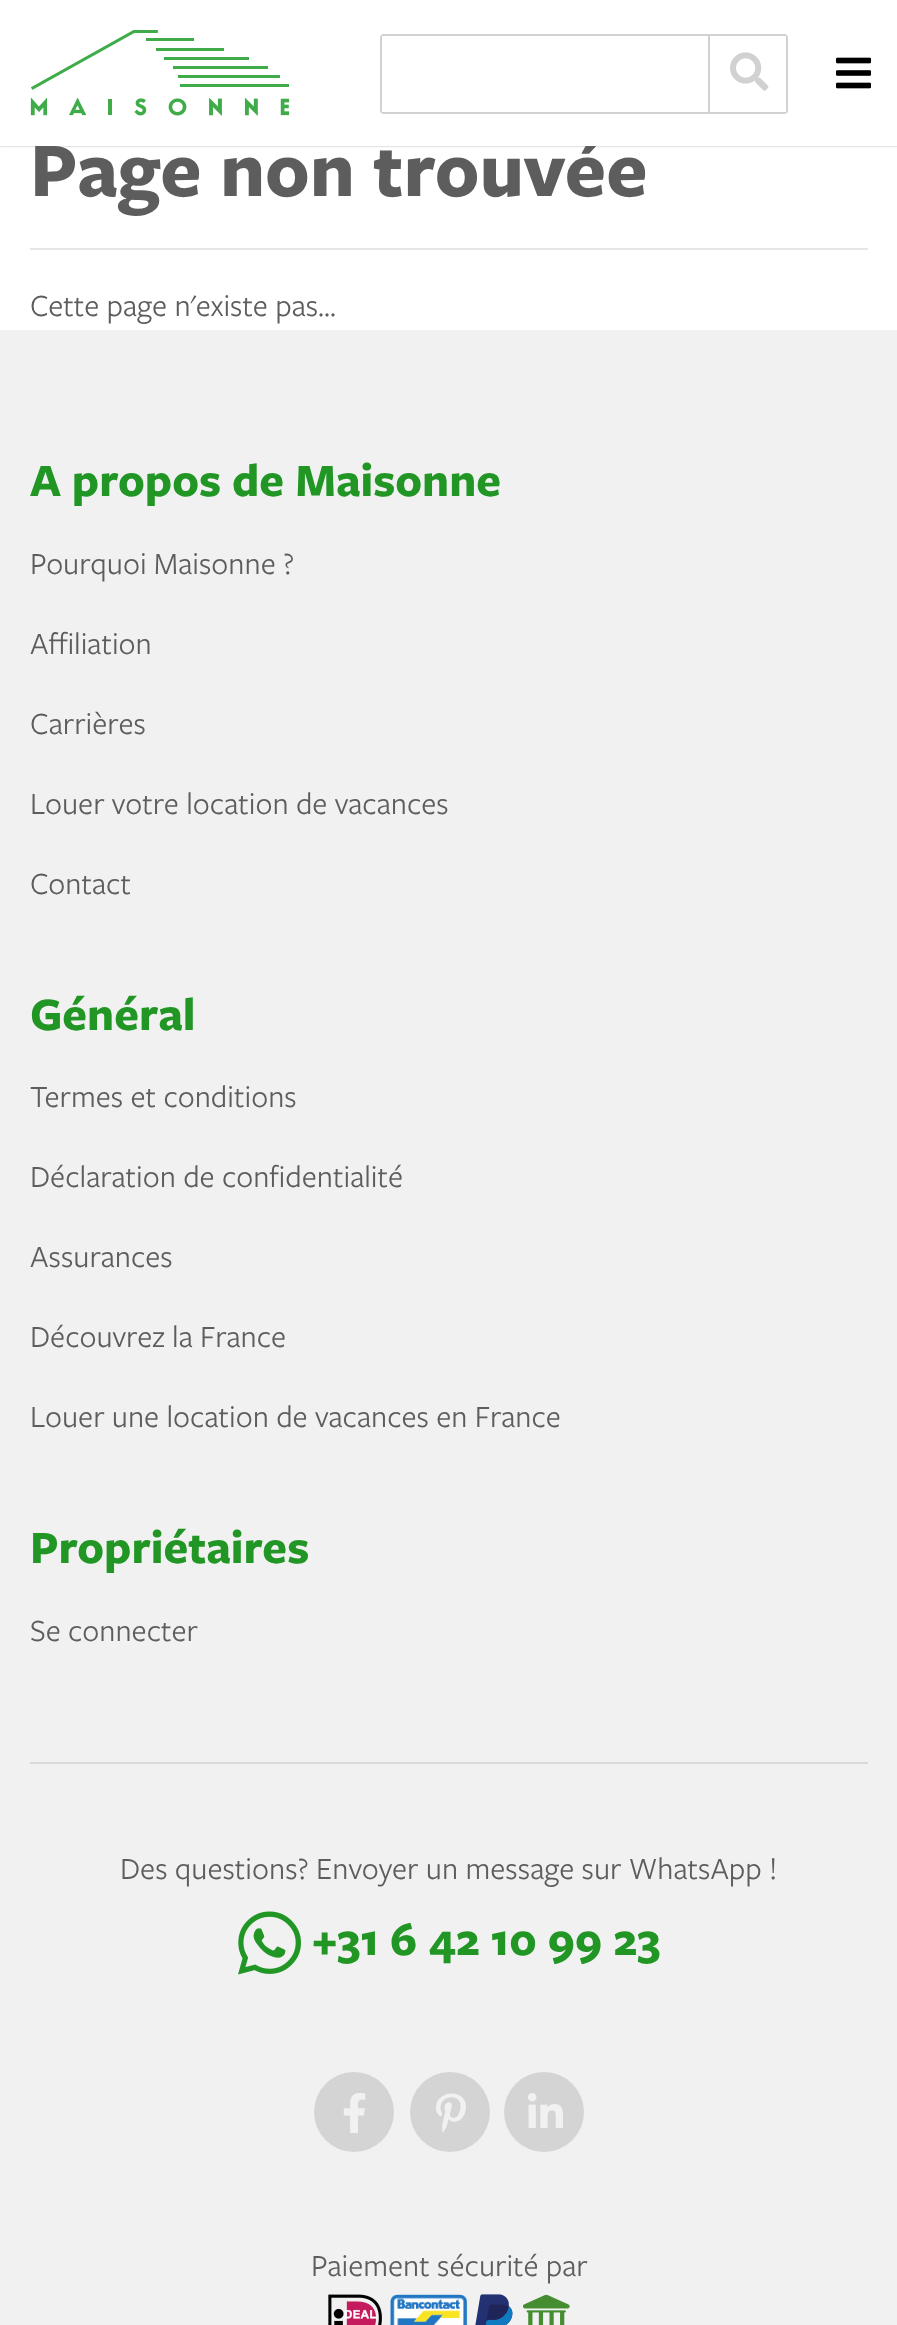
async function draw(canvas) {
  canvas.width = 897;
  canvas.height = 2325;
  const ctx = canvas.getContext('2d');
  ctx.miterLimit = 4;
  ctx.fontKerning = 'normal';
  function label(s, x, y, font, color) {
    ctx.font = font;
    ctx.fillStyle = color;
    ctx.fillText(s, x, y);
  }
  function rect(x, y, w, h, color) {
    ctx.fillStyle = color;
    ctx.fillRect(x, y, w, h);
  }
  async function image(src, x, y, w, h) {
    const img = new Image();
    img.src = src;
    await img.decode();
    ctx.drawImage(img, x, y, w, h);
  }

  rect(0, 0, 897, 2325, '#fff');
  ctx.fillStyle = '#0000004d';
  ctx.filter = 'blur(1px)';
  ctx.beginPath();
  ctx.rect(0, 0, 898, 146);
  ctx.fill();
  ctx.filter = 'none';
  label('Page non trouvée', 30, 196, 'bold 80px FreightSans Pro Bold', '#5d5d5d');
  rect(0, 0, 897, 146, '#fff');
  await image('assets/img1.png', 30, 30, 260, 86);
  ctx.beginPath();
  ctx.roundRect(381, 35, 406, 78, 3);
  ctx.strokeStyle = '#d1d1d1';
  ctx.lineWidth = 2;
  ctx.stroke();
  rect(382, 36, 2, 76, '#fff');
  rect(708, 36, 2, 76, '#d1d1d1');
  rect(784, 36, 2, 76, '#fff');
  await image('assets/img2.png', 730, 52, 39, 39);
  await image('assets/img3.png', 836, 57, 35, 32);
  rect(30, 248, 838, 2, '#e6e6e6');
  label('Cette page n\'existe pas...', 30, 316, '32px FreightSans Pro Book', '#5d5d5d');
  rect(0, 330, 897, 1995, '#f1f1f1');
  label('A propos de Maisonne', 30, 496, 'bold 48px FreightSans Pro Bold', '#219625');
  label('Pourquoi Maisonne ?', 30, 574, '32px FreightSans Pro Book', '#5d5d5d');
  label('Affiliation', 30, 654, '32px FreightSans Pro Book', '#5d5d5d');
  label('Carrières', 30, 734, '32px FreightSans Pro Book', '#5d5d5d');
  label('Louer votre location de vacances', 30, 814, '32px FreightSans Pro Book', '#5d5d5d');
  label('Contact', 30, 894, '32px FreightSans Pro Book', '#5d5d5d');
  label('Général', 30, 1030, 'bold 48px FreightSans Pro Bold', '#219625');
  label('Termes et conditions', 30, 1107, '32px FreightSans Pro Book', '#5d5d5d');
  label('Déclaration de confidentialité', 30, 1187, '32px FreightSans Pro Book', '#5d5d5d');
  label('Assurances', 30, 1267, '32px FreightSans Pro Book', '#5d5d5d');
  label('Découvrez la France', 30, 1347, '32px FreightSans Pro Book', '#5d5d5d');
  label('Louer une location de vacances en France', 30, 1427, '32px FreightSans Pro Book', '#5d5d5d');
  label('Propriétaires', 30, 1563, 'bold 48px FreightSans Pro Bold', '#219625');
  label('Se connecter', 30, 1641, '32px FreightSans Pro Book', '#5d5d5d');
  rect(30, 1762, 838, 2, '#d9d9d9');
  label('Des questions? Envoyer un message sur WhatsApp !', 120, 1879, '32px FreightSans Pro Book', '#5d5d5d');
  await image('assets/img4.png', 238, 1911, 63, 64);
  label('+31 6 42 10 99 23', 312, 1955, 'bold 48px FreightSans Pro Bold', '#219625');
  ctx.fillStyle = '#d4d4d4';
  ctx.beginPath();
  ctx.arc(354, 2112, 40, 0, 2 * Math.PI);
  ctx.fill();
  await image('assets/img5.png', 343, 2093, 23, 40);
  ctx.beginPath();
  ctx.arc(450, 2112, 40, 0, 2 * Math.PI);
  ctx.fill();
  await image('assets/img6.png', 436, 2093, 30, 40);
  ctx.beginPath();
  ctx.arc(544, 2112, 40, 0, 2 * Math.PI);
  ctx.fill();
  await image('assets/img7.png', 528, 2093, 35, 35);
  label('Paiement sécurité par', 311, 2276, '32px FreightSans Pro Book', '#5d5d5d');
  await image('assets/img8.png', 328, 2294, 54, 31);
  await image('assets/img9.png', 390, 2294, 78, 31);
  await image('assets/img10.png', 475, 2294, 38, 31);
  await image('assets/img11.png', 523, 2294, 47, 31);
}

draw(document.querySelector('canvas'));
